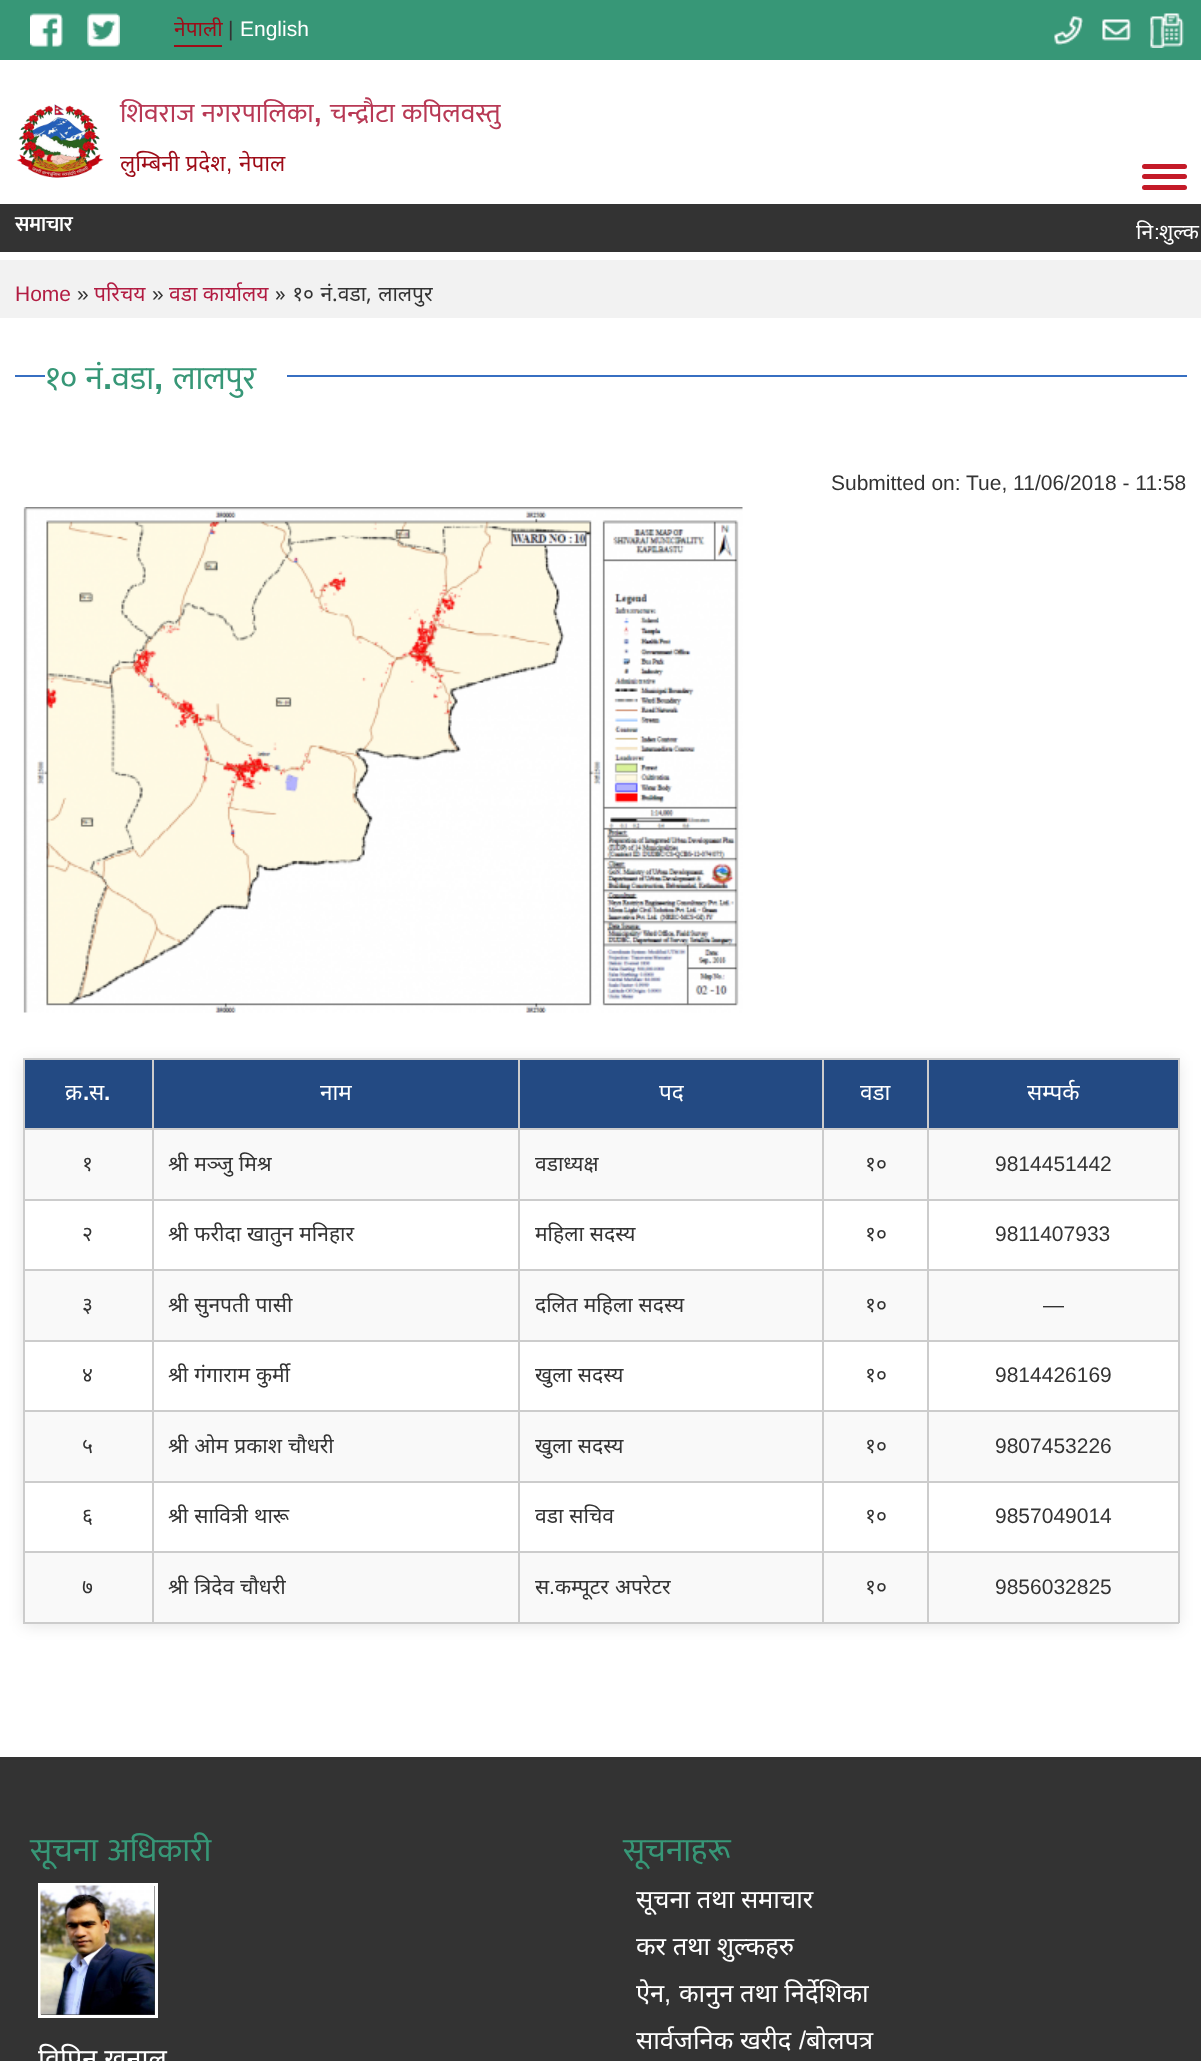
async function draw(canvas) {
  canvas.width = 1201;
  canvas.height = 2061;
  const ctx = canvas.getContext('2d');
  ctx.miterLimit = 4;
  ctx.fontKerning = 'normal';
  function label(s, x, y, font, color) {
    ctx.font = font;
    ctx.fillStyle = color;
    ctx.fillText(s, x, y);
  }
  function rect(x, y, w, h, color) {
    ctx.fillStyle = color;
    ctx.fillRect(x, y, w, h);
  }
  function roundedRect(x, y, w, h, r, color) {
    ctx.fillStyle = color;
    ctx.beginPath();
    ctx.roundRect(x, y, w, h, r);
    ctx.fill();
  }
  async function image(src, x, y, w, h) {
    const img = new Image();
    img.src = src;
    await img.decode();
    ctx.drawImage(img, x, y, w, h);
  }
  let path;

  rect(0, 0, 1201, 2061, '#fff');
  rect(0, 0, 1201, 60, '#379777');
  await image('assets/img1.png', 30, 13, 33, 34);
  await image('assets/img2.png', 87, 13, 33, 34);
  rect(174, 45, 48, 2, '#9e0c18');
  label('नेपाली', 174, 36, '21px Noto Sans', '#9e0c18');
  label('|', 228, 36, '21px Liberation Sans', '#333');
  label('English', 240, 36, '21px Liberation Sans', '#fff');
  await image('assets/img3.png', 1054, 16, 29, 29);
  await image('assets/img4.png', 1102, 19, 29, 22);
  await image('assets/img5.png', 1150, 13, 34, 35);
  await image('assets/img6.png', 16, 104, 88, 74);
  ctx.wordSpacing = '1px';
  label('शिवराज नगरपालिका', 120, 122, '27px Mukta', '#b83955');
  ctx.wordSpacing = '0px';
  label(',', 314, 122, 'bold 27px Liberation Sans', '#b83955');
  ctx.wordSpacing = '1px';
  label('चन्द्राैटा कपिलवस्तु', 330, 122, '27px Mukta', '#b83955');
  ctx.wordSpacing = '0px';
  label('लुम्बिनी प्रदेश', 120, 171, '22.5px Noto Sans', '#9e0c18');
  label(',', 226, 171, '22.5px Liberation Sans', '#9e0c18');
  label('नेपाल', 239, 171, '22.5px Noto Sans', '#9e0c18');
  roundedRect(1142, 164, 45, 5, 2.5, '#c41a28');
  roundedRect(1142, 174, 45, 5, 2.5, '#c41a28');
  roundedRect(1142, 185, 45, 5, 2.5, '#c41a28');
  rect(0, 204, 1201, 48, '#333');
  label('समाचार', 15, 231, 'bold 21px Mukta', '#fff');
  label('नि', 1136, 239, '21px Noto Sans', '#fff');
  label(':', 1154, 239, '21px Liberation Sans', '#fff');
  ctx.wordSpacing = '0.5px';
  label('शुल्क', 1159, 239, '21px Noto Sans', '#fff');
  rect(0, 260, 1201, 58, '#f2f2f2');
  ctx.wordSpacing = '0px';
  label('Home', 15, 301, '21px Liberation Sans', '#b21c42');
  label('»', 77, 301, '21px Liberation Sans', '#333');
  label('परिचय', 94, 301, '21px Noto Sans', '#b21c42');
  label('»', 152, 301, '21px Liberation Sans', '#333');
  label('वडा कार्यालय', 169, 301, '21px Noto Sans', '#b21c42');
  ctx.wordSpacing = '1px';
  label('» १० नं.वडा, लालपुर', 275, 301, '21px Noto Sans', '#333');
  rect(15, 375, 1172, 2, '#376fc2');
  rect(45, 375, 242, 2, '#fff');
  label('१० नं', 45, 389, '33px Mukta', '#379777');
  ctx.wordSpacing = '0px';
  label('.', 103, 389, 'bold 33px Liberation Sans', '#379777');
  label('वडा', 112, 389, '33px Mukta', '#379777');
  label(',', 154, 389, 'bold 33px Liberation Sans', '#379777');
  label('लालपुर', 173, 389, '33px Mukta', '#379777');
  label('Submitted on:', 831, 490, '21px Liberation Sans', '#333');
  label('Tue, 11/06/2018 - 11:58', 966, 490, '21px Liberation Sans', '#333');
  await image('assets/img7.png', 23, 507, 720, 506);
  ctx.save();
  path = new Path2D('M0 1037H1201V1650H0ZM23 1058H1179V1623H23Z');
  ctx.clip(path, 'evenodd');
  ctx.fillStyle = '#0000001a';
  ctx.filter = 'blur(7.5px)';
  ctx.beginPath();
  ctx.rect(23, 1061, 1156, 565);
  ctx.fill();
  ctx.filter = 'none';
  ctx.restore();
  rect(25, 1060, 127, 68, '#234a83');
  rect(927, 1058, 252, 2, '#ccc');
  rect(23, 1128, 1156, 2, '#ccc');
  rect(25, 1130, 1153, 69, '#f9f9f9');
  rect(927, 1199, 252, 2, '#ccc');
  rect(927, 1269, 252, 2, '#ccc');
  rect(25, 1271, 1153, 69, '#f9f9f9');
  rect(927, 1340, 252, 2, '#ccc');
  rect(927, 1410, 252, 2, '#ccc');
  rect(25, 1412, 1153, 69, '#f9f9f9');
  rect(927, 1481, 252, 2, '#ccc');
  rect(927, 1551, 252, 2, '#ccc');
  rect(25, 1553, 1153, 69, '#f9f9f9');
  rect(1178, 1551, 2, 72, '#ccc');
  rect(927, 1622, 252, 2, '#ccc');
  rect(927, 1551, 2, 72, '#ccc');
  rect(822, 1551, 107, 2, '#ccc');
  rect(927, 1481, 2, 72, '#ccc');
  rect(822, 1481, 107, 2, '#ccc');
  rect(927, 1410, 2, 72, '#ccc');
  rect(822, 1410, 107, 2, '#ccc');
  rect(927, 1340, 2, 72, '#ccc');
  rect(822, 1340, 107, 2, '#ccc');
  rect(927, 1269, 2, 72, '#ccc');
  rect(822, 1269, 107, 2, '#ccc');
  rect(927, 1199, 2, 72, '#ccc');
  rect(822, 1199, 107, 2, '#ccc');
  rect(927, 1128, 2, 72, '#ccc');
  rect(927, 1058, 2, 72, '#ccc');
  rect(822, 1058, 107, 2, '#ccc');
  rect(822, 1622, 107, 2, '#ccc');
  rect(822, 1551, 2, 72, '#ccc');
  rect(518, 1551, 306, 2, '#ccc');
  rect(822, 1481, 2, 72, '#ccc');
  rect(518, 1481, 306, 2, '#ccc');
  rect(822, 1410, 2, 72, '#ccc');
  rect(518, 1410, 306, 2, '#ccc');
  rect(822, 1340, 2, 72, '#ccc');
  rect(518, 1340, 306, 2, '#ccc');
  rect(822, 1269, 2, 72, '#ccc');
  rect(518, 1269, 306, 2, '#ccc');
  rect(822, 1199, 2, 72, '#ccc');
  rect(518, 1199, 306, 2, '#ccc');
  rect(822, 1128, 2, 72, '#ccc');
  rect(822, 1058, 2, 72, '#ccc');
  rect(518, 1058, 306, 2, '#ccc');
  rect(518, 1622, 306, 2, '#ccc');
  rect(518, 1551, 2, 72, '#ccc');
  rect(152, 1551, 367, 2, '#ccc');
  rect(518, 1481, 2, 72, '#ccc');
  rect(152, 1481, 367, 2, '#ccc');
  rect(518, 1410, 2, 72, '#ccc');
  rect(152, 1410, 367, 2, '#ccc');
  rect(518, 1340, 2, 72, '#ccc');
  rect(152, 1340, 367, 2, '#ccc');
  rect(518, 1269, 2, 72, '#ccc');
  rect(152, 1269, 367, 2, '#ccc');
  rect(518, 1199, 2, 72, '#ccc');
  rect(152, 1199, 367, 2, '#ccc');
  rect(518, 1128, 2, 72, '#ccc');
  rect(518, 1058, 2, 72, '#ccc');
  rect(152, 1058, 367, 2, '#ccc');
  rect(152, 1622, 367, 2, '#ccc');
  rect(152, 1551, 2, 72, '#ccc');
  rect(23, 1551, 130, 2, '#ccc');
  rect(152, 1481, 2, 72, '#ccc');
  rect(23, 1481, 130, 2, '#ccc');
  rect(152, 1410, 2, 72, '#ccc');
  rect(23, 1410, 130, 2, '#ccc');
  rect(152, 1340, 2, 72, '#ccc');
  rect(23, 1340, 130, 2, '#ccc');
  rect(152, 1269, 2, 72, '#ccc');
  rect(23, 1269, 130, 2, '#ccc');
  rect(152, 1199, 2, 72, '#ccc');
  rect(23, 1199, 130, 2, '#ccc');
  rect(152, 1128, 2, 72, '#ccc');
  rect(152, 1058, 2, 72, '#ccc');
  rect(23, 1058, 130, 2, '#ccc');
  rect(23, 1622, 130, 2, '#ccc');
  rect(23, 1551, 2, 72, '#ccc');
  rect(23, 1481, 2, 72, '#ccc');
  rect(23, 1410, 2, 72, '#ccc');
  rect(23, 1340, 2, 72, '#ccc');
  rect(23, 1269, 2, 72, '#ccc');
  rect(23, 1128, 2, 143, '#ccc');
  rect(23, 1058, 2, 72, '#ccc');
  label('क्र', 65, 1100, '22.5px Noto Sans', '#fff');
  label('.', 83, 1100, 'bold 22.5px Liberation Sans', '#fff');
  label('स', 89, 1100, '22.5px Noto Sans', '#fff');
  label('.', 104, 1100, 'bold 22.5px Liberation Sans', '#fff');
  rect(154, 1060, 364, 68, '#234a83');
  label('नाम', 320, 1100, '22.5px Noto Sans', '#fff');
  rect(520, 1060, 302, 68, '#234a83');
  label('पद', 659, 1100, '22.5px Noto Sans', '#fff');
  rect(824, 1060, 103, 68, '#234a83');
  label('वडा', 860, 1100, '22.5px Noto Sans', '#fff');
  rect(929, 1060, 249, 68, '#234a83');
  rect(1178, 1481, 2, 72, '#ccc');
  rect(1178, 1410, 2, 72, '#ccc');
  rect(1178, 1340, 2, 72, '#ccc');
  rect(1178, 1269, 2, 72, '#ccc');
  rect(1178, 1128, 2, 143, '#ccc');
  rect(1178, 1058, 2, 72, '#ccc');
  label('सम्पर्क', 1027, 1100, '22.5px Noto Sans', '#fff');
  label('१', 82, 1171, '21px Noto Sans', '#333');
  ctx.wordSpacing = '0.5px';
  label('श्री मञ्जु मिश्र', 168, 1171, '21px Noto Sans', '#333');
  ctx.wordSpacing = '0px';
  label('वडाध्यक्ष', 535, 1171, '21px Noto Sans', '#333');
  label('१०', 865, 1171, '21px Noto Sans', '#333');
  label('9814451442', 995, 1171, '21px Liberation Sans', '#333');
  label('२', 82, 1241, '21px Noto Sans', '#333');
  ctx.wordSpacing = '0.5px';
  label('श्री फरीदा खातुन मनिहार', 168, 1241, '21px Noto Sans', '#333');
  label('महिला सदस्य', 535, 1241, '21px Noto Sans', '#333');
  ctx.wordSpacing = '0px';
  label('१०', 865, 1241, '21px Noto Sans', '#333');
  label('9811407933', 995, 1241, '21px Liberation Sans', '#333');
  label('३', 82, 1312, '21px Noto Sans', '#333');
  ctx.wordSpacing = '0.5px';
  label('श्री सुनपती पासी', 168, 1312, '21px Noto Sans', '#333');
  label('दलित महिला सदस्य', 535, 1312, '21px Noto Sans', '#333');
  ctx.wordSpacing = '0px';
  label('१०', 865, 1312, '21px Noto Sans', '#333');
  label('—', 1043, 1312, '21px Liberation Sans', '#333');
  label('४', 82, 1382, '21px Noto Sans', '#333');
  ctx.wordSpacing = '0.5px';
  label('श्री गंगाराम कुर्मी', 168, 1382, '21px Noto Sans', '#333');
  label('खुला सदस्य', 535, 1382, '21px Noto Sans', '#333');
  ctx.wordSpacing = '0px';
  label('१०', 865, 1382, '21px Noto Sans', '#333');
  label('9814426169', 995, 1382, '21px Liberation Sans', '#333');
  label('५', 82, 1453, '21px Noto Sans', '#333');
  ctx.wordSpacing = '0.5px';
  label('श्री ओम प्रकाश चौधरी', 168, 1453, '21px Noto Sans', '#333');
  label('खुला सदस्य', 535, 1453, '21px Noto Sans', '#333');
  ctx.wordSpacing = '0px';
  label('१०', 865, 1453, '21px Noto Sans', '#333');
  label('9807453226', 995, 1453, '21px Liberation Sans', '#333');
  label('६', 82, 1523, '21px Noto Sans', '#333');
  ctx.wordSpacing = '0.5px';
  label('श्री सावित्री थारू', 168, 1523, '21px Noto Sans', '#333');
  label('वडा सचिव', 535, 1523, '21px Noto Sans', '#333');
  ctx.wordSpacing = '0px';
  label('१०', 865, 1523, '21px Noto Sans', '#333');
  label('9857049014', 995, 1523, '21px Liberation Sans', '#333');
  label('७', 82, 1594, '21px Noto Sans', '#333');
  ctx.wordSpacing = '0.5px';
  label('श्री त्रिदेव चौधरी', 168, 1594, '21px Noto Sans', '#333');
  ctx.wordSpacing = '0px';
  label('स', 535, 1594, '21px Noto Sans', '#333');
  label('.', 549, 1594, '21px Liberation Sans', '#333');
  ctx.wordSpacing = '0.5px';
  label('कम्पूटर अपरेटर', 555, 1594, '21px Noto Sans', '#333');
  ctx.wordSpacing = '0px';
  label('१०', 865, 1594, '21px Noto Sans', '#333');
  label('9856032825', 995, 1594, '21px Liberation Sans', '#333');
  rect(0, 1757, 1201, 304, '#333');
  ctx.wordSpacing = '2px';
  label('सूचना अधिकारी', 30, 1861, '33px Mukta', '#379777');
  ctx.strokeStyle = '#fff';
  ctx.lineWidth = 3;
  ctx.strokeRect(39.5, 1884.5, 117, 132);
  await image('assets/img8.png', 40, 1885, 115, 130);
  ctx.wordSpacing = '0px';
  label('विपिन खनाल', 38, 2068, '27px Noto Sans', '#fff');
  label('सूचनाहरू', 623, 1861, '33px Mukta', '#379777');
  label('सूचना तथा समाचार', 636, 1908, '25.5px Noto Sans', '#fff');
  label('कर तथा शुल्कहरु', 636, 1955, '25.5px Noto Sans', '#fff');
  label('ऐन', 636, 2002, '25.5px Noto Sans', '#fff');
  label(',', 664, 2002, '25.5px Liberation Sans', '#fff');
  label('कानुन तथा निर्देशिका', 679, 2002, '25.5px Noto Sans', '#fff');
  label('सार्वजनिक खरीद', 636, 2049, '25.5px Noto Sans', '#fff');
  label('/', 799, 2049, '25.5px Liberation Sans', '#fff');
  label('बोलपत्र', 806, 2049, '25.5px Noto Sans', '#fff');
}

draw(document.querySelector('canvas'));
